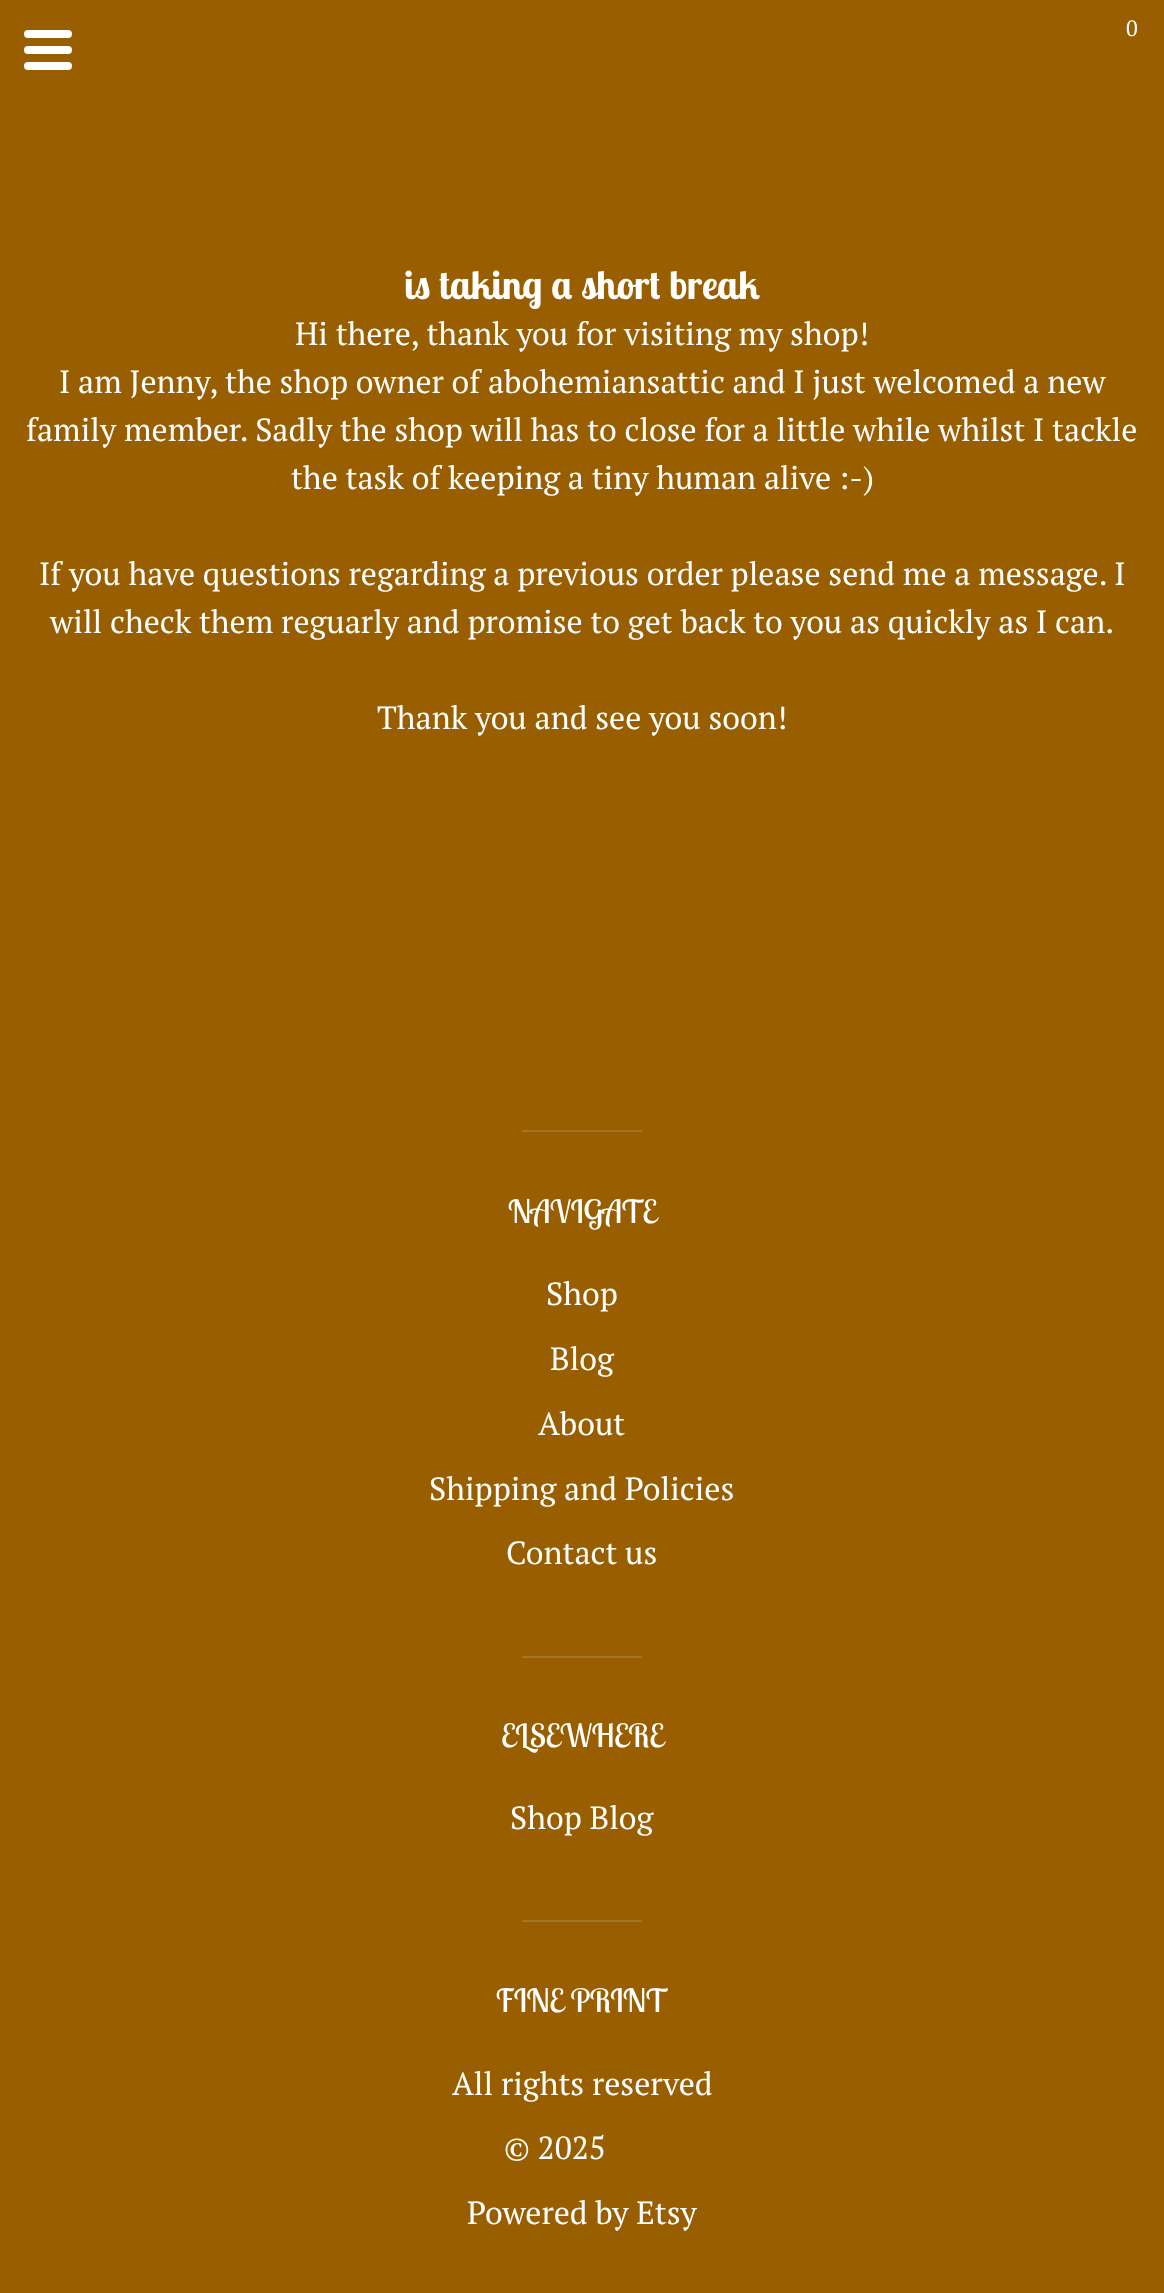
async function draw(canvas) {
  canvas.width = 1164;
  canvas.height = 2293;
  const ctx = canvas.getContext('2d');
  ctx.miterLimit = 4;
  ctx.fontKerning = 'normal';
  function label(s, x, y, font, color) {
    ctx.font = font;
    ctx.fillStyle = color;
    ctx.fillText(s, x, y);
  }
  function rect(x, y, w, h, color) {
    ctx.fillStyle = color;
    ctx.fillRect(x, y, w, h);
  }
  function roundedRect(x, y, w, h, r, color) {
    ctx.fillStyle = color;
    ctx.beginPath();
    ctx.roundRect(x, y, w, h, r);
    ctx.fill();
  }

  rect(0, 0, 1164, 2293, '#985e00');
  roundedRect(24, 30, 48, 8, 4, '#fff');
  roundedRect(24, 46, 48, 8, 4, '#fff');
  roundedRect(24, 62, 48, 8, 4, '#fff');
  label('0', 1126, 36, '22px PT Serif', '#fff');
  label('is taking a short break', 404, 299, 'bold 40px Lobster Two', '#fff');
  label('Hi there, thank you for visiting my shop!', 295, 345, '32px PT Serif', '#fff');
  label('I am Jenny, the shop owner of abohemiansattic and I just welcomed a new', 59, 393, '32px PT Serif', '#fff');
  label('family member. Sadly the shop will has to close for a little while whilst I tackle', 26, 441, '32px PT Serif', '#fff');
  label('the task of keeping a tiny human alive :-)', 291, 489, '32px PT Serif', '#fff');
  label('If you have questions regarding a previous order please send me a message. I', 39, 585, '32px PT Serif', '#fff');
  label('will check them reguarly and promise to get back to you as quickly as I can.', 50, 633, '32px PT Serif', '#fff');
  label('Thank you and see you soon!', 377, 729, '32px PT Serif', '#fff');
  rect(522, 1130, 120, 2, '#a27429');
  label('NAVIGATE', 508, 1223, '32px Lobster Two', '#fff');
  label('Shop', 546, 1305, '32px PT Serif', '#fff');
  label('Blog', 550, 1370, '32px PT Serif', '#fff');
  label('About', 538, 1435, '32px PT Serif', '#fff');
  label('Shipping and Policies', 429, 1500, '32px PT Serif', '#fff');
  label('Contact us', 506, 1564, '32px PT Serif', '#fff');
  rect(522, 1656, 120, 2, '#a27429');
  label('ELSEWHERE', 501, 1747, '32px Lobster Two', '#fff');
  label('Shop Blog', 510, 1829, '32px PT Serif', '#fff');
  rect(522, 1920, 120, 2, '#a27429');
  label('FINE PRINT', 496, 2012, '32px Lobster Two', '#fff');
  label('All rights reserved', 452, 2095, '32px PT Serif', '#fff');
  label('© 2025', 504, 2159, '32px PT Serif', '#fff');
  label('Powered by Etsy', 467, 2224, '32px PT Serif', '#fff');
}

draw(document.querySelector('canvas'));
